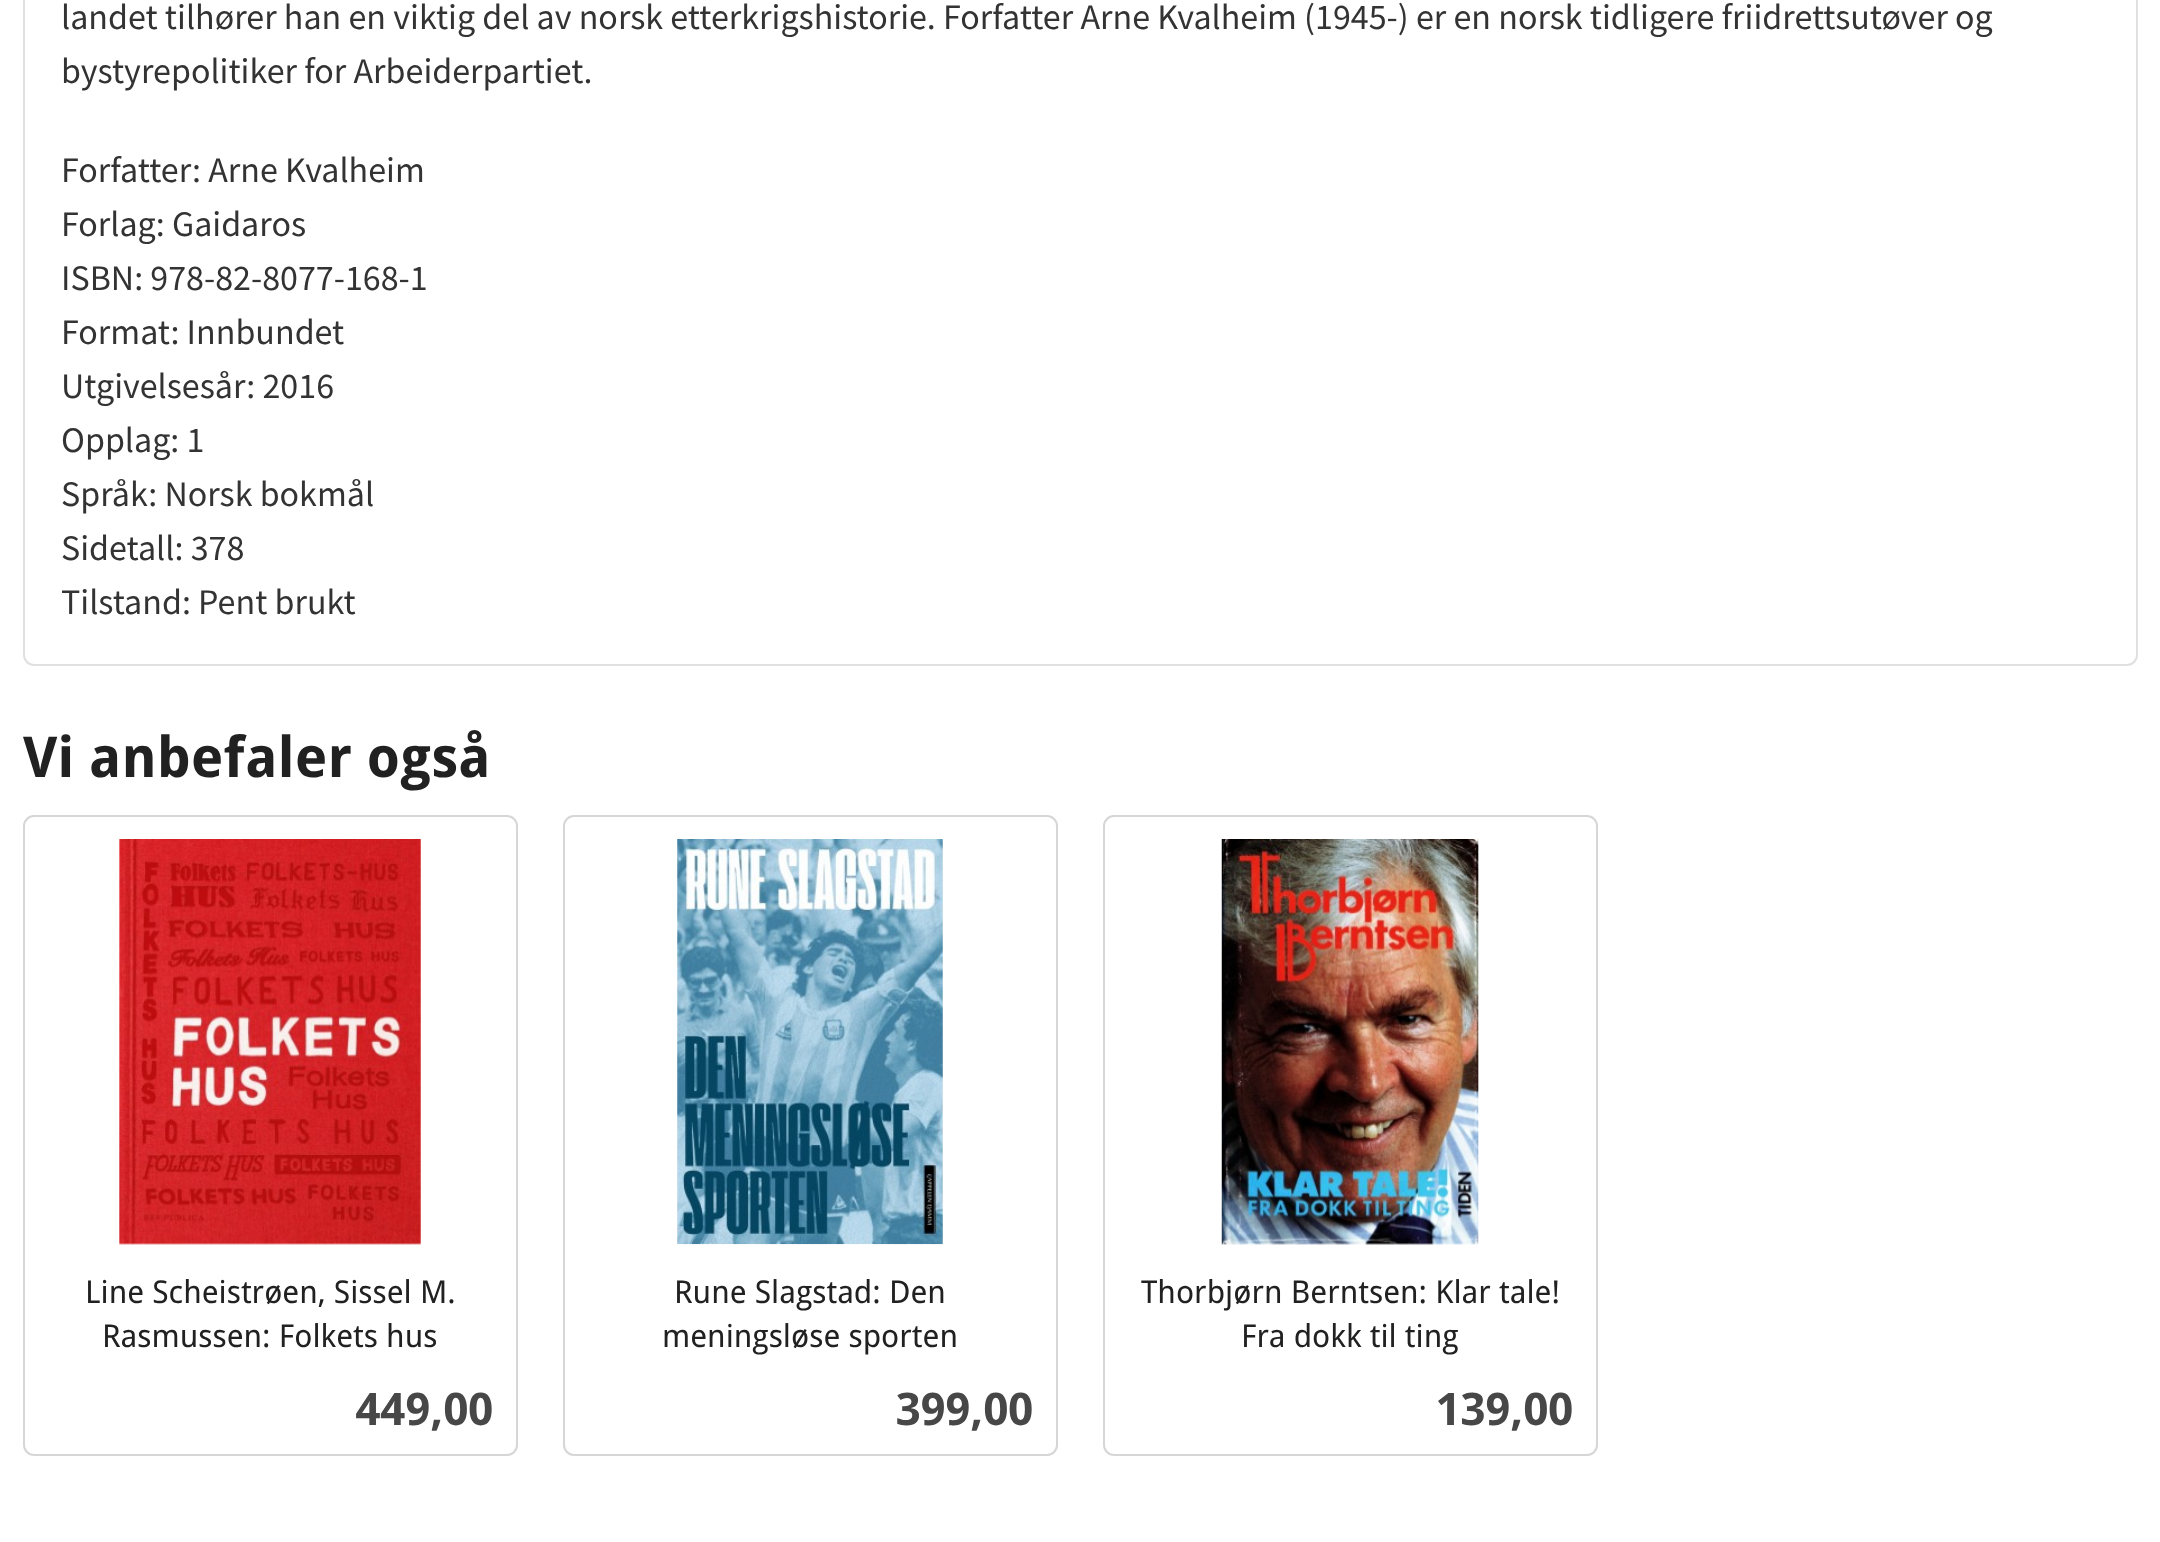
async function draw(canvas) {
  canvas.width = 2160;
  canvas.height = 1542;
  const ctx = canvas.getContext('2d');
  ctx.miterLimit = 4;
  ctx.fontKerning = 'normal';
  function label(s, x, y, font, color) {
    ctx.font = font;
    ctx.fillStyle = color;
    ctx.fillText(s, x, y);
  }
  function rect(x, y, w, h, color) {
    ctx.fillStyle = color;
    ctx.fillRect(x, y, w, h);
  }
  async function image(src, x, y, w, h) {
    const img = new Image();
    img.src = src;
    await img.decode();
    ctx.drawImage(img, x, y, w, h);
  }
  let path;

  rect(0, 0, 2160, 1542, '#fff');
  path = new Path2D('M24-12H2137V655C2137 660.5 2132.5 665 2127 665H34C28.5 665 24 660.5 24 655Z');
  ctx.strokeStyle = '#e0e0e0';
  ctx.lineWidth = 2;
  ctx.stroke(path);
  label('landet tilhører han en viktig del av norsk etterkrigshistorie. Forfatter Arne Kvalheim (1945-) er en norsk tidligere friidrettsutøver og', 61, 29, '36px Source Sans Pro', '#333');
  label('bystyrepolitiker for Arbeiderpartiet.', 61, 83, '36px Source Sans Pro', '#333');
  label('Forfatter: Arne Kvalheim', 61, 182, '36px Source Sans Pro', '#333');
  label('Forlag: Gaidaros', 61, 236, '36px Source Sans Pro', '#333');
  label('ISBN: 978-82-8077-168-1', 61, 290, '36px Source Sans Pro', '#333');
  label('Format: Innbundet', 61, 344, '36px Source Sans Pro', '#333');
  label('Utgivelsesår: 2016', 61, 398, '36px Source Sans Pro', '#333');
  label('Opplag: 1', 61, 452, '36px Source Sans Pro', '#333');
  label('Språk: Norsk bokmål', 61, 506, '36px Source Sans Pro', '#333');
  label('Sidetall: 378', 61, 560, '36px Source Sans Pro', '#333');
  label('Tilstand: Pent brukt', 61, 614, '36px Source Sans Pro', '#333');
  label('Vi anbefaler også', 23, 777, 'bold 56.25px Droid Sans', '#212121');
  ctx.beginPath();
  ctx.roundRect(24, 816, 493, 639, 10);
  ctx.strokeStyle = '#d6d6d6';
  ctx.stroke();
  await image('assets/img1.png', 119, 839, 302, 406);
  label('Line Scheistrøen, Sissel M.', 85, 1303, '31.5px Droid Sans', '#212121');
  label('Rasmussen: Folkets hus', 102, 1347, '31.5px Droid Sans', '#212121');
  label('449,00', 356, 1425, 'bold 45px Droid Sans', '#474747');
  ctx.beginPath();
  ctx.roundRect(564, 816, 493, 639, 10);
  ctx.stroke();
  await image('assets/img2.png', 677, 839, 266, 406);
  label('Rune Slagstad: Den', 674, 1303, '31.5px Droid Sans', '#212121');
  label('meningsløse sporten', 662, 1347, '31.5px Droid Sans', '#212121');
  label('399,00', 896, 1425, 'bold 45px Droid Sans', '#474747');
  ctx.beginPath();
  ctx.roundRect(1104, 816, 493, 639, 10);
  ctx.stroke();
  await image('assets/img3.png', 1221, 839, 258, 406);
  label('Thorbjørn Berntsen: Klar tale!', 1141, 1303, '31.5px Droid Sans', '#212121');
  label('Fra dokk til ting', 1241, 1347, '31.5px Droid Sans', '#212121');
  label('139,00', 1436, 1425, 'bold 45px Droid Sans', '#474747');
}

draw(document.querySelector('canvas'));
